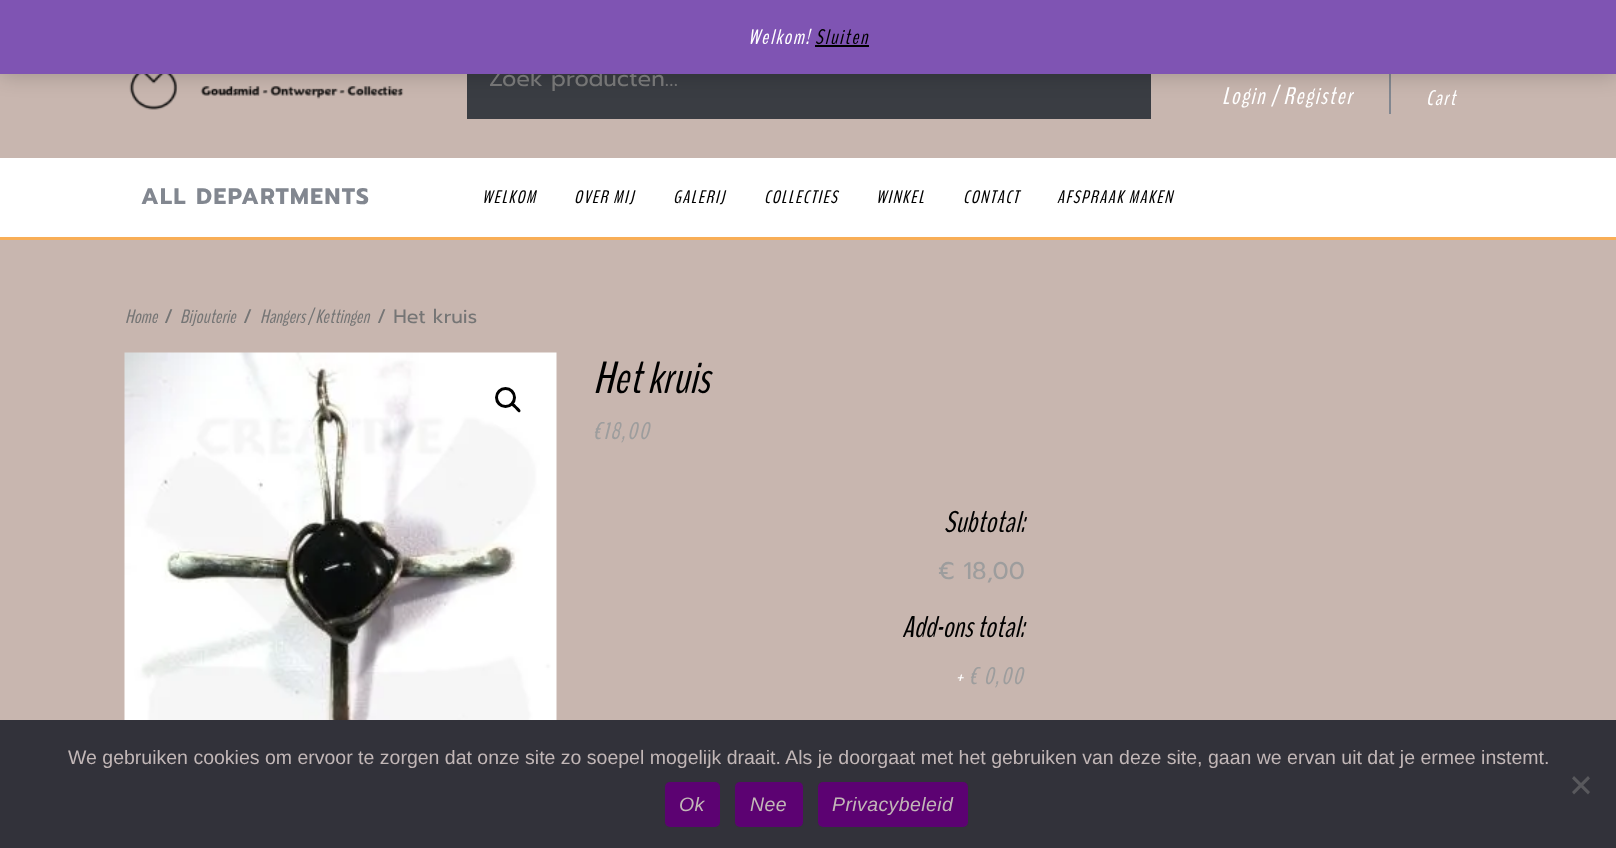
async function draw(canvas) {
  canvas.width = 1616;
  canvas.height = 848;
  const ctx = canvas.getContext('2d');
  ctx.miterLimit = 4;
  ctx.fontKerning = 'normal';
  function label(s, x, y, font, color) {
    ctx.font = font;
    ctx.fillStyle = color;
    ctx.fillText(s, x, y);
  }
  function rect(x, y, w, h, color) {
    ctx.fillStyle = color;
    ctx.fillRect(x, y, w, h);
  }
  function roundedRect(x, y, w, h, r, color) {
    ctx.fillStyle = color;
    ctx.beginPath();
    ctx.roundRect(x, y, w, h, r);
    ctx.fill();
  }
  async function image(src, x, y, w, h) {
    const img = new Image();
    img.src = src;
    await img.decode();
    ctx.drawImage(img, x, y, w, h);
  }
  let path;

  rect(0, 0, 1616, 848, '#c8b6af');
  await image('assets/img1.png', 129, 74, 275, 36);
  rect(467, 74, 684, 45, '#3a3d43');
  rect(1389, 74, 2, 40, '#828790');
  ctx.fillStyle = '#00000033';
  ctx.filter = 'blur(10.5px)';
  ctx.beginPath();
  ctx.rect(0, 2, 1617, 73);
  ctx.fill();
  ctx.filter = 'none';
  label('Zoek producten…', 489, 86, '22.5px Prompt', '#757575');
  rect(0, 0, 1616, 74, '#7f54b3');
  ctx.letterSpacing = '1.5px';
  label('Welkom!', 748, 44, 'italic 21px BenchNine', '#fff');
  label('Sluiten', 815, 44, 'italic 21px BenchNine', '#000');
  rect(815, 45, 54, 2, '#000');
  label('Login / Register', 1222, 104, 'italic 24px BenchNine', '#fff');
  label('Cart', 1426, 105, 'italic 21px BenchNine', '#fff');
  rect(0, 158, 1616, 79, '#fff');
  rect(0, 237, 1616, 3, '#f8ae57');
  label('ALL DEPARTMENTS', 141, 204, 'bold 22.5px Prompt', '#828790');
  label('WELKOM', 482, 203, 'italic 18px BenchNine', '#000');
  label('OVER MIJ', 574, 203, 'italic 18px BenchNine', '#000');
  label('GALERIJ', 673, 203, 'italic 18px BenchNine', '#000');
  label('COLLECTIES', 764, 203, 'italic 18px BenchNine', '#000');
  label('WINKEL', 876, 203, 'italic 18px BenchNine', '#000');
  label('CONTACT', 963, 203, 'italic 18px BenchNine', '#000');
  label('AFSPRAAK MAKEN', 1057, 203, 'italic 18px BenchNine', '#000');
  ctx.letterSpacing = '0px';
  label('Home', 125, 323, 'italic 19.25px BenchNine', '#757575');
  label('/', 164, 323, '19.25px Prompt', '#757575');
  label('Bijouterie', 180, 323, 'italic 19.25px BenchNine', '#757575');
  label('/', 243, 323, '19.25px Prompt', '#757575');
  label('Hangers / Kettingen', 260, 323, 'italic 19.25px BenchNine', '#757575');
  label('/ Het kruis', 377, 323, '19.25px Prompt', '#757575');
  await image('assets/img2.png', 124, 352, 433, 368);
  ctx.fillStyle = '#fff';
  ctx.beginPath();
  ctx.arc(509, 401, 27, 0, 2 * Math.PI);
  ctx.fill();
  ctx.beginPath();
  ctx.arc(505.5, 397.5, 9, 0, 2 * Math.PI);
  ctx.strokeStyle = '#000';
  ctx.lineWidth = 3;
  ctx.stroke();
  ctx.fillStyle = '#000';
  path = new Path2D('M511.5 403.5C513.5 401.5 516 405.5 517 406.5C518 407.5 522 410 520 412C518.5 413.5 516 409.5 515 408.5C514 407.5 510 405 511.5 403.5Z');
  ctx.fill(path);
  label('Het kruis', 593, 393, 'italic 45px BenchNine', '#000');
  ctx.letterSpacing = '1.5px';
  label('€18,00', 593, 439, 'italic 24px BenchNine', '#9d9d9d');
  ctx.letterSpacing = '0px';
  label('Subtotal:', 944, 532, 'italic 30px BenchNine', '#000');
  label('€ 18,00', 938, 579, '24px Prompt', '#9d9d9d');
  label('Add-ons total:', 902, 637, 'italic 30px BenchNine', '#000');
  ctx.letterSpacing = '1.5px';
  label('+', 955, 684, 'italic 21px BenchNine', '#fff');
  label('€ 0,00', 969, 684, 'italic 24px BenchNine', '#9d9d9d');
  rect(0, 720, 1616, 128, '#32323a');
  ctx.letterSpacing = '0px';
  label('We gebruiken cookies om ervoor te zorgen dat onze site zo soepel mogelijk draait. Als je doorgaat met het gebruiken van deze site, gaan we ervan uit dat je ermee instemt.', 68, 764, '19.5px Liberation Sans', '#c2b7b7');
  ctx.fillStyle = '#59595d';
  path = new Path2D('M1588 776L1590 778.5L1574 794.5L1572 792Z');
  ctx.fill(path);
  path = new Path2D('M1572 778.5L1574 776L1590 792L1588 794.5Z');
  ctx.fill(path);
  roundedRect(665, 782, 55, 45, 5, '#5c0272');
  ctx.letterSpacing = '0.4px';
  label('Ok', 679, 811, 'italic 19.5px Liberation Sans', '#c2b7b7');
  roundedRect(735, 782, 68, 45, 5, '#5c0272');
  label('Nee', 750, 811, 'italic 19.5px Liberation Sans', '#c2b7b7');
  roundedRect(818, 782, 150, 45, 5, '#5c0272');
  label('Privacybeleid', 832, 811, 'italic 19.5px Liberation Sans', '#c2b7b7');
}

draw(document.querySelector('canvas'));
